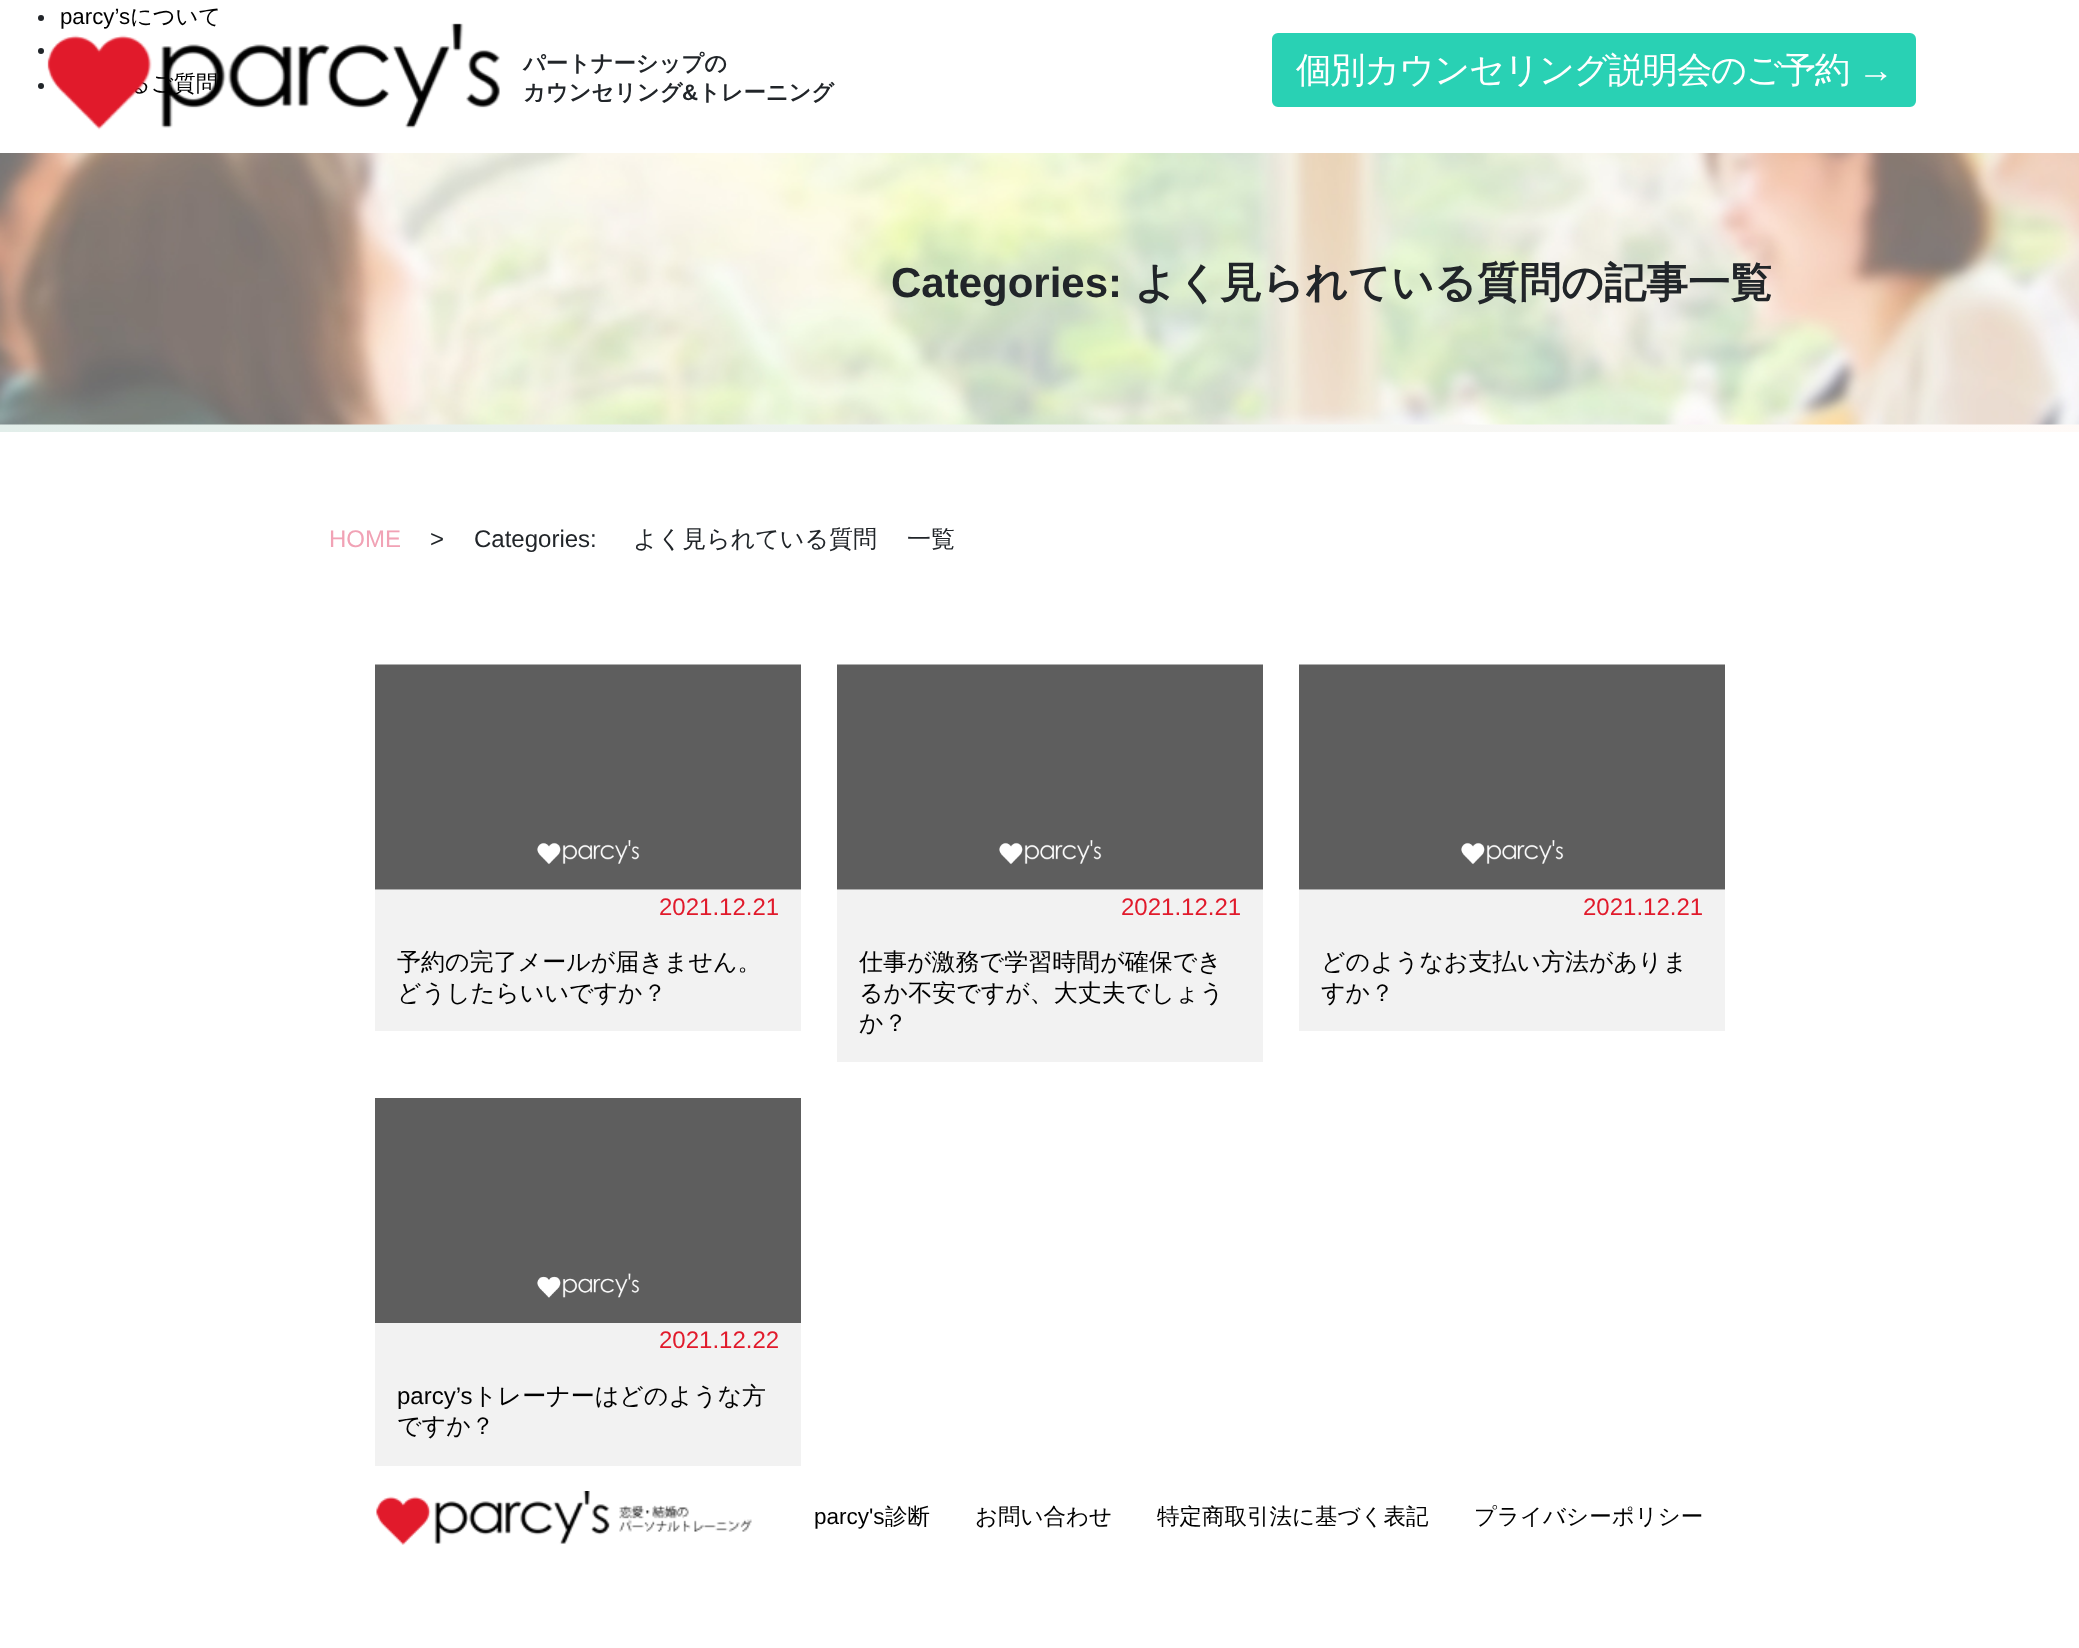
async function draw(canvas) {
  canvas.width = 2079;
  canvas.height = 1648;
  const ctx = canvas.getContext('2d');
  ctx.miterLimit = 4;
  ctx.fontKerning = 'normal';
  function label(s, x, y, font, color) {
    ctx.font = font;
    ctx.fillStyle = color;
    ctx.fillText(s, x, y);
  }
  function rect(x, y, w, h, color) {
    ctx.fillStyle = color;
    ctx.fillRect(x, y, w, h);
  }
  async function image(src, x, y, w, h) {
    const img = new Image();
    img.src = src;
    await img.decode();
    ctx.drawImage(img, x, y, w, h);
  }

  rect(0, 0, 2079, 1648, '#fff');
  ctx.fillStyle = '#212529';
  ctx.beginPath();
  ctx.arc(41, 18, 3, 0, 2 * Math.PI);
  ctx.fill();
  label('parcy’s', 60, 24, '22.25px Liberation Sans', '#000');
  label('について', 130, 24, '500 22.25px WenQuanYi Zen Hei', '#000');
  ctx.fillStyle = '#212529';
  ctx.beginPath();
  ctx.arc(41, 51, 3, 0, 2 * Math.PI);
  ctx.fill();
  ctx.beginPath();
  ctx.arc(41, 86, 3, 0, 2 * Math.PI);
  ctx.fill();
  label('るご質問', 128, 91, '500 22.25px WenQuanYi Zen Hei', '#000');
  await image('assets/img1.png', 47, 23, 453, 107);
  label('パートナーシップの', 523, 71, 'bold 22.25px WenQuanYi Zen Hei', '#212529');
  label('カウンセリング', 523, 100, 'bold 22.25px WenQuanYi Zen Hei', '#212529');
  label('&', 682, 100, 'bold 22.25px Liberation Sans', '#212529');
  label('トレーニング', 698, 100, 'bold 22.25px WenQuanYi Zen Hei', '#212529');
  ctx.fillStyle = '#29d1b4';
  ctx.beginPath();
  ctx.roundRect(1273, 34, 642, 72, 5);
  ctx.fill();
  ctx.strokeStyle = '#29d1b4';
  ctx.lineWidth = 2;
  ctx.stroke();
  ctx.letterSpacing = '-1.5px';
  label('個別カウンセリング説明会のご予約', 1296, 82, '500 35.6px WenQuanYi Zen Hei', '#fff');
  label('→', 1858, 82, '35.6px Liberation Sans', '#fff');
  await image('assets/img2.png', 0, 153, 2079, 272);
  await image('assets/img3.png', 0, 424, 2079, 8);
  ctx.letterSpacing = '0px';
  label('Categories:', 891, 297, 'bold 42px Liberation Sans', '#212529');
  label('よく見られている質問の記事一覧', 1134, 297, 'bold 42px WenQuanYi Zen Hei', '#212529');
  label('HOME', 329, 547, '24px Liberation Sans', '#f1a2b5');
  label('>', 430, 547, '24px Liberation Sans', '#212529');
  label('Categories:', 474, 547, '24px Liberation Sans', '#212529');
  label('よく見られている質問', 633, 547, '500 24px WenQuanYi Zen Hei', '#212529');
  label('一覧', 907, 547, '500 24px WenQuanYi Zen Hei', '#212529');
  await image('assets/img4.png', 375, 664, 426, 226);
  rect(375, 890, 426, 141, '#f2f2f2');
  label('2021.12.21', 659, 915, '24px Liberation Sans', '#e11a2b');
  label('予約の完了メールが届きません。', 397, 970, '500 24px WenQuanYi Zen Hei', '#000');
  label('どうしたらいいですか？', 397, 1001, '500 24px WenQuanYi Zen Hei', '#000');
  await image('assets/img4.png', 837, 664, 426, 226);
  rect(837, 890, 426, 172, '#f2f2f2');
  label('2021.12.21', 1121, 915, '24px Liberation Sans', '#e11a2b');
  label('仕事が激務で学習時間が確保でき', 859, 970, '500 24px WenQuanYi Zen Hei', '#000');
  label('るか不安ですが、大丈夫でしょう', 859, 1001, '500 24px WenQuanYi Zen Hei', '#000');
  label('か？', 859, 1031, '500 24px WenQuanYi Zen Hei', '#000');
  await image('assets/img4.png', 1299, 664, 426, 226);
  rect(1299, 890, 426, 141, '#f2f2f2');
  label('2021.12.21', 1583, 915, '24px Liberation Sans', '#e11a2b');
  label('どのようなお支払い方法がありま', 1321, 970, '500 24px WenQuanYi Zen Hei', '#000');
  label('すか？', 1321, 1001, '500 24px WenQuanYi Zen Hei', '#000');
  await image('assets/img5.png', 375, 1098, 426, 225);
  rect(375, 1323, 426, 143, '#f2f2f2');
  label('2021.12.22', 659, 1348, '24px Liberation Sans', '#e11a2b');
  label('parcy’s', 397, 1404, '24px Liberation Sans', '#000');
  label('トレーナーはどのような方', 473, 1404, '500 24px WenQuanYi Zen Hei', '#000');
  label('ですか？', 397, 1434, '500 24px WenQuanYi Zen Hei', '#000');
  await image('assets/img6.png', 376, 1491, 376, 54);
  label('parcy\'s', 814, 1524, '22.5px Liberation Sans', '#000');
  label('診断', 885, 1524, '500 22.5px WenQuanYi Zen Hei', '#000');
  label('お問い合わせ', 975, 1524, '500 22.5px WenQuanYi Zen Hei', '#000');
  label('特定商取引法に基づく表記', 1157, 1524, '500 22.5px WenQuanYi Zen Hei', '#000');
  label('プライバシーポリシー', 1474, 1524, '500 22.5px WenQuanYi Zen Hei', '#000');
}

draw(document.querySelector('canvas'));
